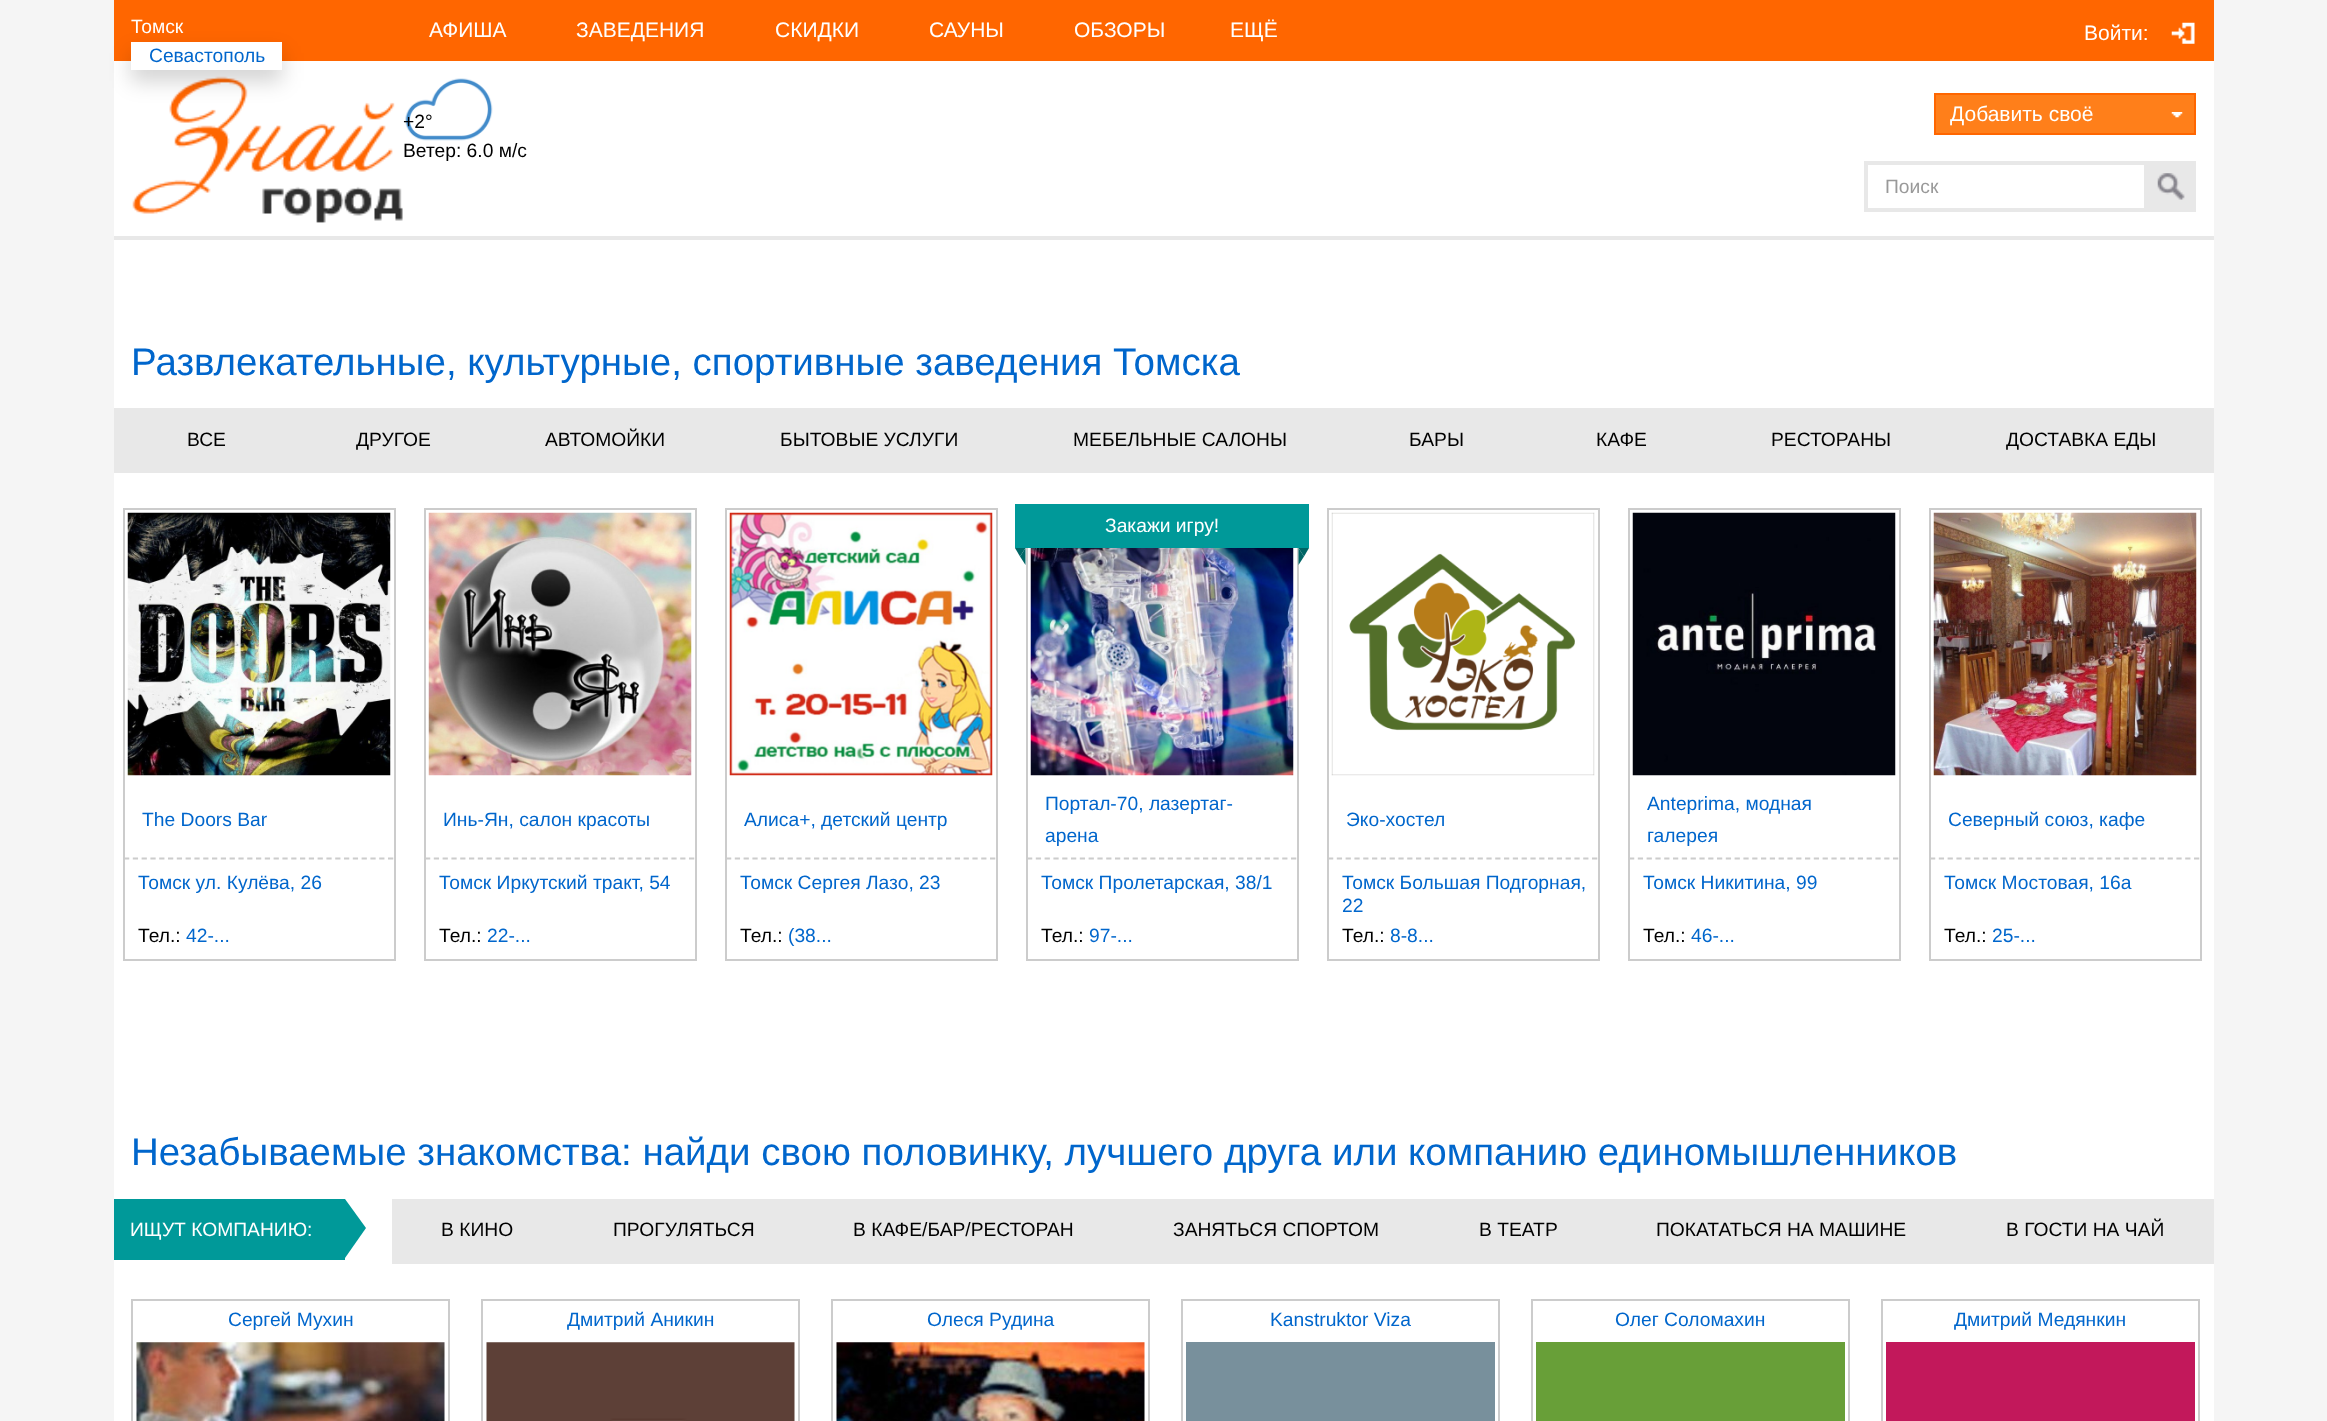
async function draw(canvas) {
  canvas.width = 2327;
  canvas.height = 1421;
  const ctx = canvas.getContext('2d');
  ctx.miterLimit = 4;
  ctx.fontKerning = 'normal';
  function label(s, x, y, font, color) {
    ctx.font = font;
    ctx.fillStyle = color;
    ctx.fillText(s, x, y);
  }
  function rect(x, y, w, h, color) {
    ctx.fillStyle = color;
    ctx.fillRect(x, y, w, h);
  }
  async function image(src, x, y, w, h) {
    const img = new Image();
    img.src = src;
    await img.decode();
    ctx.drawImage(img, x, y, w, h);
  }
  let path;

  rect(0, 0, 2327, 1421, '#f5f5f5');
  rect(114, 61, 2100, 1360, '#fff');
  rect(114, 0, 2100, 61, '#f60');
  await image('assets/img2.png', 132, 76, 271, 147);
  ctx.fillStyle = '#0000002e';
  ctx.filter = 'blur(10.5px)';
  ctx.beginPath();
  ctx.rect(131, 53, 151, 28);
  ctx.fill();
  ctx.filter = 'none';
  label('Томск', 131, 33, '19.25px Liberation Sans', '#fff');
  rect(131, 42, 151, 28, '#fff');
  label('Севастополь', 149, 62, '19.25px Liberation Sans', '#06c');
  label('АФИША', 429, 37, '21px Liberation Sans', '#fff');
  label('ЗАВЕДЕНИЯ', 576, 37, '21px Liberation Sans', '#fff');
  label('СКИДКИ', 775, 37, '21px Liberation Sans', '#fff');
  label('САУНЫ', 929, 37, '21px Liberation Sans', '#fff');
  label('ОБЗОРЫ', 1074, 37, '21px Liberation Sans', '#fff');
  label('ЕЩЁ', 1230, 37, '21px Liberation Sans', '#fff');
  rect(1864, 161, 282, 4, '#e8e8e8');
  rect(1864, 208, 282, 4, '#e8e8e8');
  rect(1864, 161, 4, 51, '#e8e8e8');
  label('Поиск', 1885, 193, '19.25px Liberation Sans', '#999');
  rect(2144, 161, 52, 51, '#e8e8e8');
  await image('assets/img1.png', 2157, 173, 28, 27);
  await image('assets/img3.png', 405, 78, 88, 63);
  label('+2°', 403, 128, '19.25px Liberation Sans', '#000');
  label('Ветер: 6.0 м/с', 403, 157, '19.25px Liberation Sans', '#000');
  await image('assets/img4.png', 2171, 22, 24, 22);
  label('Войти:', 2084, 40, '21px Liberation Sans', '#fff');
  rect(1936, 95, 258, 38, '#ff7f1a');
  await image('assets/img5.png', 2171, 112, 12, 6);
  ctx.strokeStyle = '#f60';
  ctx.lineWidth = 2;
  ctx.strokeRect(1935, 94, 260, 40);
  label('Добавить своё', 1950, 121, '21px Liberation Sans', '#fff');
  rect(114, 236, 2100, 4, '#e8e8e8');
  label('Развлекательные, культурные, спортивные заведения Томска', 131, 375, '38.5px Liberation Sans', '#06c');
  rect(114, 408, 2100, 65, '#e8e8e8');
  label('ВСЕ', 187, 446, '19.25px Liberation Sans', '#000');
  label('ДРУГОЕ', 356, 446, '19.25px Liberation Sans', '#000');
  label('АВТОМОЙКИ', 545, 446, '19.25px Liberation Sans', '#000');
  label('БЫТОВЫЕ УСЛУГИ', 780, 446, '19.25px Liberation Sans', '#000');
  label('МЕБЕЛЬНЫЕ САЛОНЫ', 1073, 446, '19.25px Liberation Sans', '#000');
  label('БАРЫ', 1409, 446, '19.25px Liberation Sans', '#000');
  label('КАФЕ', 1596, 446, '19.25px Liberation Sans', '#000');
  label('РЕСТОРАНЫ', 1771, 446, '19.25px Liberation Sans', '#000');
  label('ДОСТАВКА ЕДЫ', 2006, 446, '19.25px Liberation Sans', '#000');
  ctx.strokeStyle = '#ccc';
  ctx.strokeRect(124, 509, 271, 451);
  await image('assets/img6.png', 127, 512, 264, 264);
  path = new Path2D('M124 858.5H394');
  ctx.lineWidth = 1.8;
  ctx.setLineDash([5.25, 3.55]);
  ctx.stroke(path);
  label('The Doors Bar', 142, 826, '19.25px Liberation Sans', '#06c');
  label('Томск ул. Кулёва, 26', 138, 889, '19.25px Liberation Sans', '#06c');
  label('Тел.:', 138, 942, '19.25px Liberation Sans', '#000');
  label('42-...', 186, 942, '19.25px Liberation Sans', '#06c');
  ctx.lineWidth = 2;
  ctx.setLineDash([]);
  ctx.strokeRect(425, 509, 271, 451);
  await image('assets/img7.png', 428, 512, 264, 264);
  path = new Path2D('M425 858.5H695');
  ctx.lineWidth = 1.8;
  ctx.setLineDash([5.25, 3.55]);
  ctx.stroke(path);
  label('Инь-Ян, салон красоты', 443, 826, '19.25px Liberation Sans', '#06c');
  label('Томск Иркутский тракт, 54', 439, 889, '19.25px Liberation Sans', '#06c');
  label('Тел.:', 439, 942, '19.25px Liberation Sans', '#000');
  label('22-...', 487, 942, '19.25px Liberation Sans', '#06c');
  ctx.lineWidth = 2;
  ctx.setLineDash([]);
  ctx.strokeRect(726, 509, 271, 451);
  await image('assets/img8.png', 729, 512, 264, 264);
  path = new Path2D('M726 858.5H996');
  ctx.lineWidth = 1.8;
  ctx.setLineDash([5.25, 3.55]);
  ctx.stroke(path);
  label('Алиса+, детский центр', 744, 826, '19.25px Liberation Sans', '#06c');
  label('Томск Сергея Лазо, 23', 740, 889, '19.25px Liberation Sans', '#06c');
  label('Тел.:', 740, 942, '19.25px Liberation Sans', '#000');
  label('(38...', 788, 942, '19.25px Liberation Sans', '#06c');
  ctx.lineWidth = 2;
  ctx.setLineDash([]);
  ctx.strokeRect(1027, 509, 271, 451);
  rect(1015, 504, 294, 44, '#099');
  label('Закажи игру!', 1105, 532, '19.25px Liberation Sans', '#fff');
  ctx.fillStyle = '#066';
  path = new Path2D('M1015 548H1025.5L1020 556.5Z');
  ctx.fill(path);
  path = new Path2D('M1025.5 548V565L1020 556.5Z');
  ctx.fill(path);
  path = new Path2D('M1298.5 548H1309L1304 556.5Z');
  ctx.fill(path);
  path = new Path2D('M1298.5 565V548L1304 556.5Z');
  ctx.fill(path);
  await image('assets/img9.png', 1030, 548, 264, 228);
  path = new Path2D('M1027 858.5H1297');
  ctx.lineWidth = 1.8;
  ctx.setLineDash([5.25, 3.55]);
  ctx.stroke(path);
  label('Портал-70, лазертаг-', 1045, 810, '19.25px Liberation Sans', '#06c');
  label('арена', 1045, 842, '19.25px Liberation Sans', '#06c');
  label('Томск Пролетарская, 38/1', 1041, 889, '19.25px Liberation Sans', '#06c');
  label('Тел.:', 1041, 942, '19.25px Liberation Sans', '#000');
  label('97-...', 1089, 942, '19.25px Liberation Sans', '#06c');
  ctx.lineWidth = 2;
  ctx.setLineDash([]);
  ctx.strokeRect(1328, 509, 271, 451);
  await image('assets/img10.png', 1331, 512, 264, 264);
  path = new Path2D('M1328 858.5H1598');
  ctx.lineWidth = 1.8;
  ctx.setLineDash([5.25, 3.55]);
  ctx.stroke(path);
  label('Эко-хостел', 1346, 826, '19.25px Liberation Sans', '#06c');
  label('Томск Большая Подгорная,', 1342, 889, '19.25px Liberation Sans', '#06c');
  label('22', 1342, 912, '19.25px Liberation Sans', '#06c');
  label('Тел.:', 1342, 942, '19.25px Liberation Sans', '#000');
  label('8-8...', 1390, 942, '19.25px Liberation Sans', '#06c');
  ctx.lineWidth = 2;
  ctx.setLineDash([]);
  ctx.strokeRect(1629, 509, 271, 451);
  await image('assets/img11.png', 1632, 512, 264, 264);
  path = new Path2D('M1629 858.5H1899');
  ctx.lineWidth = 1.8;
  ctx.setLineDash([5.25, 3.55]);
  ctx.stroke(path);
  label('Anteprima, модная', 1647, 810, '19.25px Liberation Sans', '#06c');
  label('галерея', 1647, 842, '19.25px Liberation Sans', '#06c');
  label('Томск Никитина, 99', 1643, 889, '19.25px Liberation Sans', '#06c');
  label('Тел.:', 1643, 942, '19.25px Liberation Sans', '#000');
  label('46-...', 1691, 942, '19.25px Liberation Sans', '#06c');
  ctx.lineWidth = 2;
  ctx.setLineDash([]);
  ctx.strokeRect(1930, 509, 271, 451);
  await image('assets/img12.png', 1933, 512, 264, 264);
  path = new Path2D('M1930 858.5H2200');
  ctx.lineWidth = 1.8;
  ctx.setLineDash([5.25, 3.55]);
  ctx.stroke(path);
  label('Северный союз, кафе', 1948, 826, '19.25px Liberation Sans', '#06c');
  label('Томск Мостовая, 16а', 1944, 889, '19.25px Liberation Sans', '#06c');
  label('Тел.:', 1944, 942, '19.25px Liberation Sans', '#000');
  label('25-...', 1992, 942, '19.25px Liberation Sans', '#06c');
  label('Незабываемые знакомства: найди свою половинку, лучшего друга или компанию единомышленников', 131, 1165, '38.5px Liberation Sans', '#06c');
  rect(392, 1199, 1822, 65, '#e8e8e8');
  rect(114, 1199, 231, 61, '#099');
  label('ИЩУТ КОМПАНИЮ:', 130, 1236, '19.25px Liberation Sans', '#fff');
  ctx.fillStyle = '#099';
  path = new Path2D('M345 1258V1199L366 1228Z');
  ctx.fill(path);
  label('В КИНО', 441, 1236, '19.25px Liberation Sans', '#000');
  label('ПРОГУЛЯТЬСЯ', 613, 1236, '19.25px Liberation Sans', '#000');
  label('В КАФЕ/БАР/РЕСТОРАН', 853, 1236, '19.25px Liberation Sans', '#000');
  label('ЗАНЯТЬСЯ СПОРТОМ', 1173, 1236, '19.25px Liberation Sans', '#000');
  label('В ТЕАТР', 1479, 1236, '19.25px Liberation Sans', '#000');
  label('ПОКАТАТЬСЯ НА МАШИНЕ', 1656, 1236, '19.25px Liberation Sans', '#000');
  label('В ГОСТИ НА ЧАЙ', 2006, 1236, '19.25px Liberation Sans', '#000');
  ctx.lineWidth = 2;
  ctx.setLineDash([]);
  ctx.strokeRect(132, 1300, 317, 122);
  label('Сергей Мухин', 228, 1326, '19.25px Liberation Sans', '#06c');
  await image('assets/img13.png', 136, 1342, 309, 79);
  ctx.strokeRect(482, 1300, 317, 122);
  label('Дмитрий Аникин', 567, 1326, '19.25px Liberation Sans', '#06c');
  await image('assets/img14.png', 486, 1342, 309, 79);
  ctx.strokeRect(832, 1300, 317, 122);
  label('Олеся Рудина', 927, 1326, '19.25px Liberation Sans', '#06c');
  await image('assets/img15.png', 836, 1342, 309, 79);
  ctx.strokeRect(1182, 1300, 317, 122);
  label('Kanstruktor Viza', 1270, 1326, '19.25px Liberation Sans', '#06c');
  rect(1186, 1342, 309, 79, '#78909c');
  ctx.strokeRect(1532, 1300, 317, 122);
  label('Олег Соломахин', 1615, 1326, '19.25px Liberation Sans', '#06c');
  rect(1536, 1342, 309, 79, '#689f38');
  ctx.strokeRect(1882, 1300, 317, 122);
  label('Дмитрий Медянкин', 1954, 1326, '19.25px Liberation Sans', '#06c');
  rect(1886, 1342, 309, 79, '#c2185b');
}

draw(document.querySelector('canvas'));
